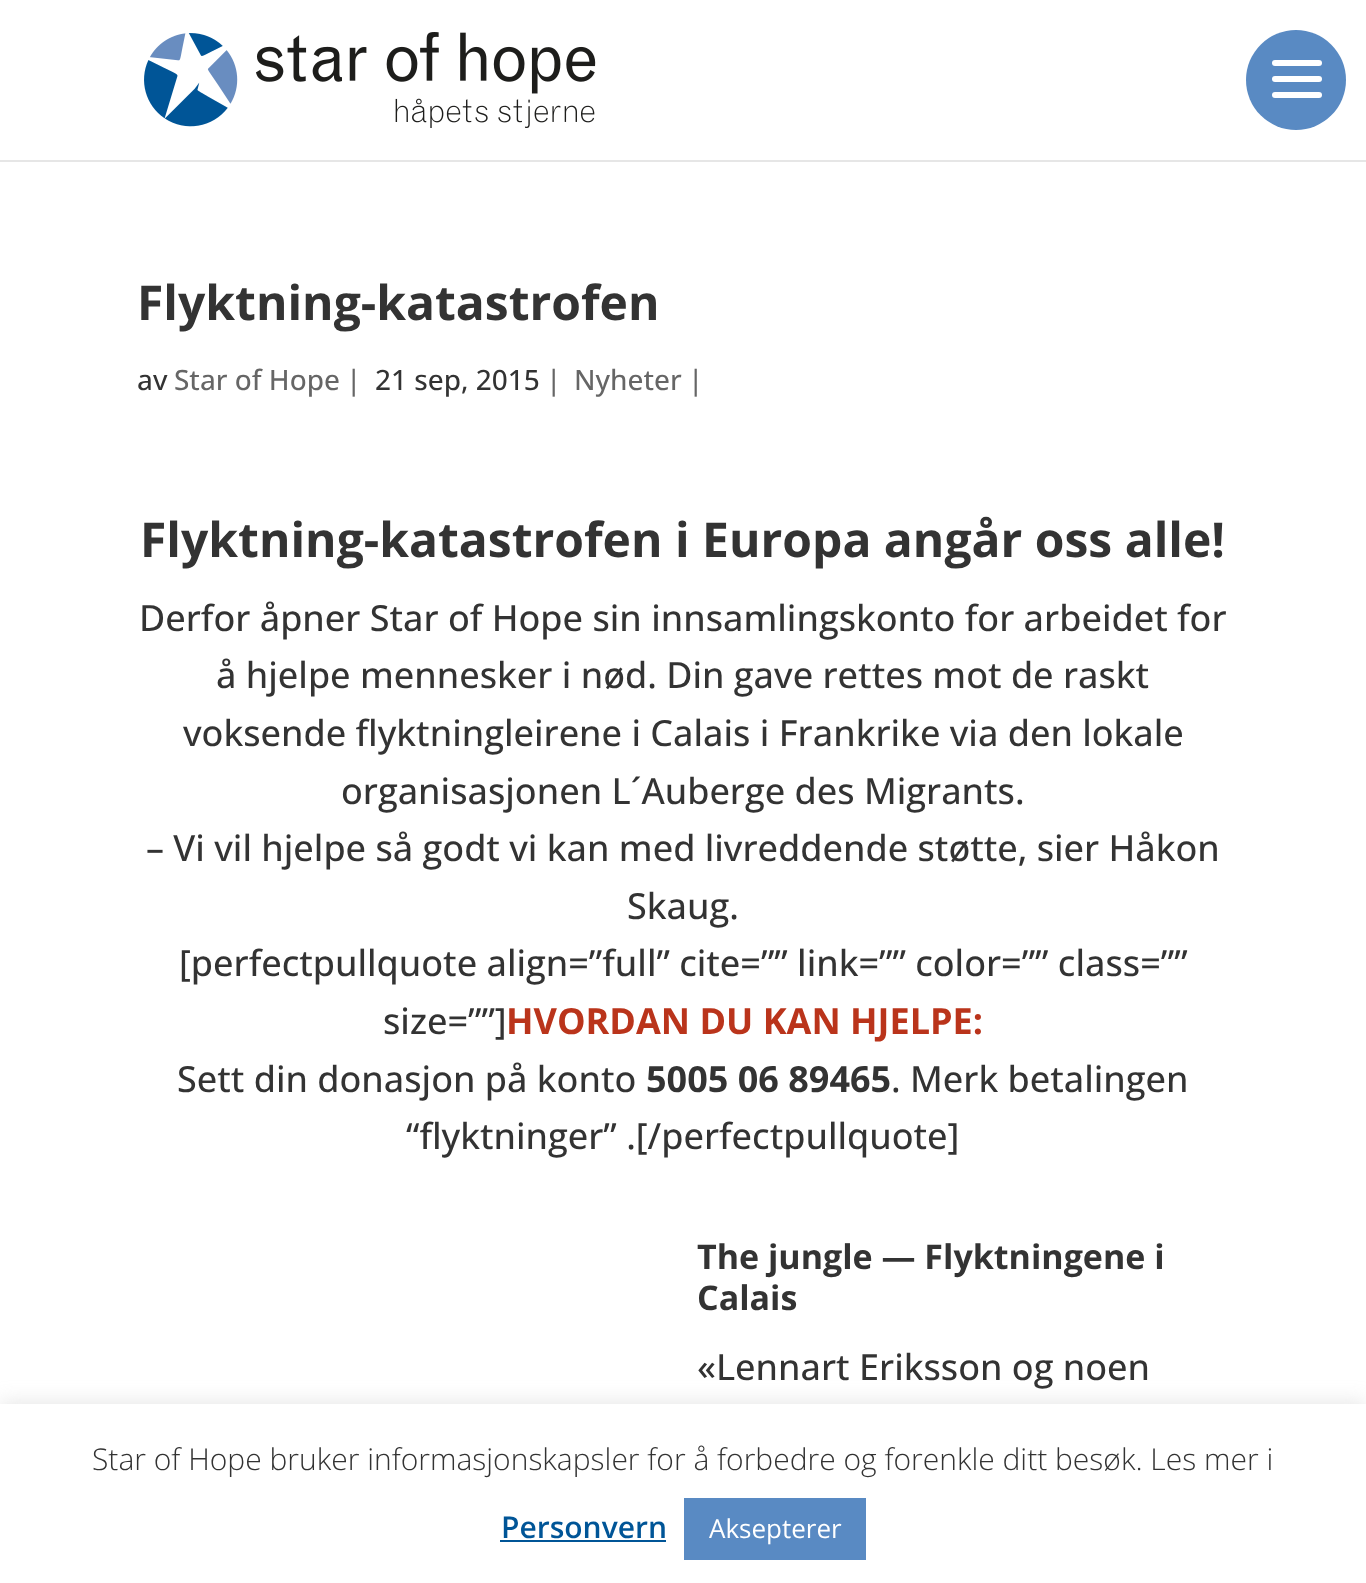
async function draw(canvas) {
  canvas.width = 1366;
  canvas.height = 1583;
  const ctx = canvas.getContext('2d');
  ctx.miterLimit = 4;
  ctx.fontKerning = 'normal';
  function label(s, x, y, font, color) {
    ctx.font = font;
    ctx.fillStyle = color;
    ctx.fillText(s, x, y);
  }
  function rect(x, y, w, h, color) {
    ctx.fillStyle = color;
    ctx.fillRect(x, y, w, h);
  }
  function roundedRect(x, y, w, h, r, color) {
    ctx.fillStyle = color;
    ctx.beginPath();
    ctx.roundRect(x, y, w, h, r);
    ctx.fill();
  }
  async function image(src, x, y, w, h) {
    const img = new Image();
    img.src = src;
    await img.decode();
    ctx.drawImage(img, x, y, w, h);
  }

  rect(0, 0, 1366, 1583, '#fff');
  ctx.fillStyle = '#598ac3';
  ctx.beginPath();
  ctx.arc(1296, 80, 50, 0, 2 * Math.PI);
  ctx.fill();
  roundedRect(1272, 76, 50, 6, 3, '#fff');
  roundedRect(1272, 60, 50, 6, 3, '#fff');
  roundedRect(1272, 92, 50, 6, 3, '#fff');
  rect(0, 160, 1366, 2, '#e6e6e6');
  await image('assets/img1.png', 144, 32, 452, 96);
  label('Flyktning-katastrofen', 137, 320, 'bold 48px Open Sans', '#333');
  label('av', 137, 390, '500 28px Open Sans', '#333');
  label('Star of Hope', 174, 390, '500 28px Open Sans', '#666');
  label('|', 346, 390, '500 28px Open Sans', '#666');
  label('21 sep, 2015', 375, 390, '500 28px Open Sans', '#333');
  label('|', 546, 390, '500 28px Open Sans', '#666');
  label('Nyheter', 574, 390, '500 28px Open Sans', '#666');
  label('|', 688, 390, '500 28px Open Sans', '#666');
  label('Flyktning-katastrofen i Europa angår oss alle!', 140, 557, 'bold 48px Open Sans', '#333');
  label('Derfor åpner Star of Hope sin innsamlingskonto for arbeidet for', 139, 631, '500 36px Open Sans', '#333');
  label('å hjelpe mennesker i nød. Din gave rettes mot de raskt', 216, 688, '500 36px Open Sans', '#333');
  label('voksende flyktningleirene i Calais i Frankrike via den lokale', 183, 746, '500 36px Open Sans', '#333');
  label('organisasjonen L´Auberge des Migrants.', 341, 804, '500 36px Open Sans', '#333');
  label('– Vi vil hjelpe så godt vi kan med livreddende støtte, sier Håkon', 146, 861, '500 36px Open Sans', '#333');
  label('Skaug.', 627, 919, '500 36px Open Sans', '#333');
  label('[perfectpullquote align=”full” cite=”” link=”” color=”” class=””', 179, 976, '500 36px Open Sans', '#333');
  label('size=””]', 383, 1034, '500 36px Open Sans', '#333');
  label('HVORDAN DU KAN HJELPE:', 506, 1034, 'bold 36px Open Sans', '#ba341b');
  label('Sett din donasjon på konto', 177, 1092, '500 36px Open Sans', '#333');
  label('5005 06 89465', 646, 1092, 'bold 36px Open Sans', '#333');
  label('. Merk betalingen', 891, 1092, '500 36px Open Sans', '#333');
  label('“flyktninger” .[/perfectpullquote]', 406, 1149, '500 36px Open Sans', '#333');
  label('The jungle — Flyktningene i', 697, 1269, 'bold 34px Open Sans', '#333');
  label('Calais', 697, 1310, 'bold 34px Open Sans', '#333');
  label('«Lennart Eriksson og noen', 697, 1380, '500 36px Open Sans', '#333');
  ctx.fillStyle = '#acabab4d';
  ctx.filter = 'blur(10px)';
  ctx.beginPath();
  ctx.rect(0, 1402, 1366, 180);
  ctx.fill();
  ctx.filter = 'none';
  rect(0, 1404, 1366, 179, '#fff');
  label('Star of Hope bruker informasjonskapsler for å forbedre og forenkle ditt besøk. Les mer i', 92, 1470, '300 30px Open Sans', '#333');
  label('Personvern', 501, 1538, '600 30px Open Sans', '#005597');
  rect(500, 1540, 166, 2, '#005597');
  rect(684, 1498, 182, 62, '#598ac3');
  label('Aksepterer', 709, 1538, '26px Open Sans', '#fff');
}

draw(document.querySelector('canvas'));
